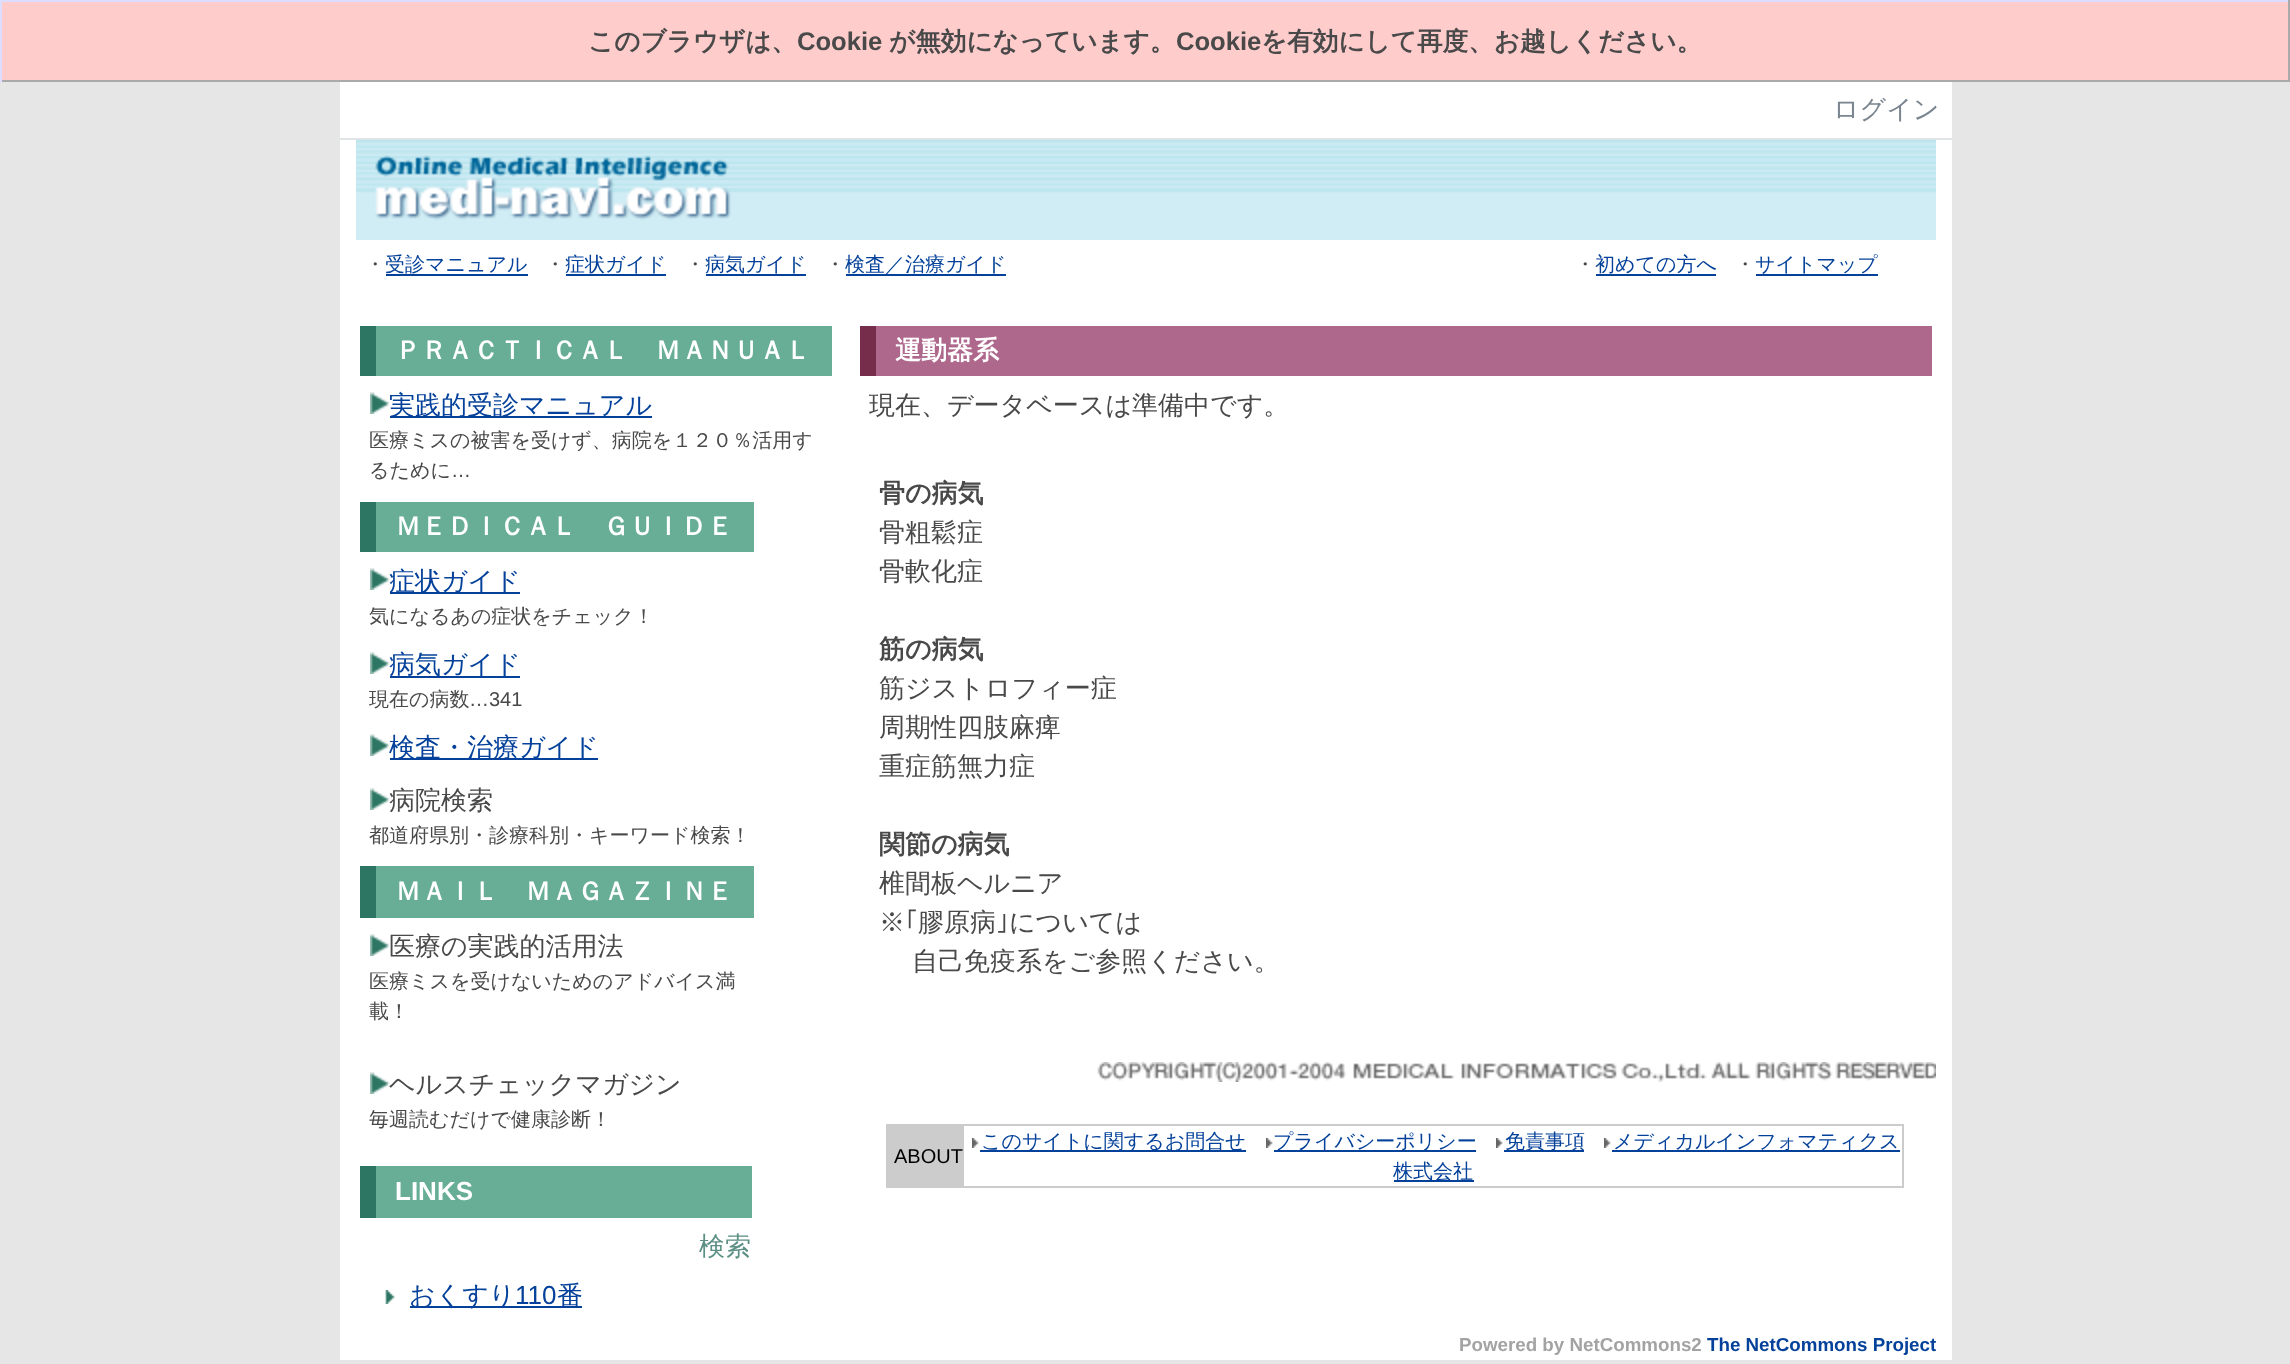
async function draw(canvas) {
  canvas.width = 2290;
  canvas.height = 1364;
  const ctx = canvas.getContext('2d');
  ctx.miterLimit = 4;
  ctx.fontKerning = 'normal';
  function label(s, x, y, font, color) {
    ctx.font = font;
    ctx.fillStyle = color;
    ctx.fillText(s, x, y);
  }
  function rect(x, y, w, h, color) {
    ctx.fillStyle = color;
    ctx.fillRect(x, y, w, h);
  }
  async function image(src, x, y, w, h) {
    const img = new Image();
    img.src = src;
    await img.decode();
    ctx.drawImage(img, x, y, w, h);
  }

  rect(0, 0, 2290, 1364, '#e6e6e6');
  rect(2, 2, 2286, 78, '#fcc');
  rect(0, 0, 2290, 2, '#ddf');
  rect(2288, 0, 2, 82, '#aaa');
  rect(0, 80, 2290, 2, '#aaa');
  rect(0, 0, 2, 82, '#ddf');
  label('このブラウザは、', 588, 50, 'bold 25.6px WenQuanYi Zen Hei', '#494949');
  label('Cookie', 797, 50, 'bold 25.6px Liberation Sans', '#494949');
  label('が無効になっています。', 889, 50, 'bold 25.6px WenQuanYi Zen Hei', '#494949');
  label('Cookie', 1176, 50, 'bold 25.6px Liberation Sans', '#494949');
  label('を有効にして再度、お越しください。', 1261, 50, 'bold 25.6px WenQuanYi Zen Hei', '#494949');
  rect(340, 82, 1612, 56, '#fff');
  rect(340, 138, 1612, 2, '#dfe4e7');
  label('ログイン', 1833, 118, '500 26px WenQuanYi Zen Hei', '#7a858f');
  rect(340, 140, 1612, 170, '#fff');
  await image('assets/img1.png', 356, 140, 1580, 100);
  label('・', 365, 271, '500 20px WenQuanYi Zen Hei', '#494949');
  label('受診マニュアル', 385, 271, '500 20px WenQuanYi Zen Hei', '#04419a');
  rect(386, 274, 142, 2, '#04419a');
  label('・', 545, 271, '500 20px WenQuanYi Zen Hei', '#494949');
  label('症状ガイド', 565, 271, '500 20px WenQuanYi Zen Hei', '#04419a');
  rect(566, 274, 100, 2, '#04419a');
  label('・', 685, 271, '500 20px WenQuanYi Zen Hei', '#494949');
  label('病気ガイド', 705, 271, '500 20px WenQuanYi Zen Hei', '#04419a');
  rect(706, 274, 100, 2, '#04419a');
  label('・', 825, 271, '500 20px WenQuanYi Zen Hei', '#494949');
  rect(846, 274, 160, 2, '#04419a');
  label('検査／治療ガイド', 845, 271, '500 20px WenQuanYi Zen Hei', '#04419a');
  label('・', 1575, 271, '500 20px WenQuanYi Zen Hei', '#494949');
  label('初めての方へ', 1595, 271, '500 20px WenQuanYi Zen Hei', '#04419a');
  rect(1596, 274, 120, 2, '#04419a');
  label('・', 1735, 271, '500 20px WenQuanYi Zen Hei', '#494949');
  label('サイトマップ', 1755, 271, '500 20px WenQuanYi Zen Hei', '#04419a');
  rect(1756, 274, 122, 2, '#04419a');
  rect(340, 310, 1612, 1050, '#fff');
  rect(360, 326, 16, 50, '#2c7663');
  rect(376, 326, 456, 50, '#68ae96');
  label('ＰＲＡＣＴＩＣＡＬ　ＭＡＮＵＡＬ', 395, 359, 'bold 26px WenQuanYi Zen Hei', '#fff');
  await image('assets/img2.png', 370, 392, 20, 22);
  rect(390, 416, 262, 2, '#04419a');
  label('実践的受診マニュアル', 389, 414, '500 26px WenQuanYi Zen Hei', '#04419a');
  label('医療ミスの被害を受けず、病院を１２０％活用す', 369, 447, '500 20px WenQuanYi Zen Hei', '#494949');
  label('るために', 369, 477, '500 20px WenQuanYi Zen Hei', '#494949');
  label('…', 451, 477, '20px Liberation Sans', '#494949');
  rect(360, 502, 16, 50, '#2c7663');
  rect(376, 502, 378, 50, '#68ae96');
  label('ＭＥＤＩＣＡＬ　ＧＵＩＤＥ', 395, 535, 'bold 26px WenQuanYi Zen Hei', '#fff');
  await image('assets/img2.png', 370, 568, 20, 22);
  rect(390, 592, 130, 2, '#04419a');
  label('症状ガイド', 389, 590, '500 26px WenQuanYi Zen Hei', '#04419a');
  label('気になるあの症状をチェック！', 369, 623, '500 20px WenQuanYi Zen Hei', '#494949');
  await image('assets/img2.png', 370, 652, 20, 22);
  rect(390, 676, 130, 2, '#04419a');
  label('病気ガイド', 389, 673, '500 26px WenQuanYi Zen Hei', '#04419a');
  label('現在の病数', 369, 706, '500 20px WenQuanYi Zen Hei', '#494949');
  label('…341', 469, 706, '20px Liberation Sans', '#494949');
  await image('assets/img2.png', 370, 734, 20, 22);
  rect(390, 758, 208, 2, '#04419a');
  label('検査・治療ガイド', 389, 756, '500 26px WenQuanYi Zen Hei', '#04419a');
  await image('assets/img2.png', 370, 788, 20, 22);
  label('病院検索', 389, 809, '500 26px WenQuanYi Zen Hei', '#494949');
  label('都道府県別・診療科別・キーワード検索！', 369, 842, '500 20px WenQuanYi Zen Hei', '#494949');
  rect(360, 866, 16, 52, '#2c7663');
  rect(376, 866, 378, 52, '#68ae96');
  label('ＭＡＩＬ　ＭＡＧＡＺＩＮＥ', 395, 900, 'bold 26px WenQuanYi Zen Hei', '#fff');
  await image('assets/img2.png', 370, 934, 20, 22);
  label('医療の実践的活用法', 389, 955, '500 26px WenQuanYi Zen Hei', '#494949');
  label('医療ミスを受けないためのアドバイス満', 369, 988, '500 20px WenQuanYi Zen Hei', '#494949');
  label('載！', 369, 1018, '500 20px WenQuanYi Zen Hei', '#494949');
  await image('assets/img2.png', 370, 1072, 20, 22);
  label('ヘルスチェックマガジン', 389, 1093, '500 26px WenQuanYi Zen Hei', '#494949');
  label('毎週読むだけで健康診断！', 369, 1126, '500 20px WenQuanYi Zen Hei', '#494949');
  rect(360, 1166, 16, 52, '#2c7663');
  rect(376, 1166, 376, 52, '#68ae96');
  label('LINKS', 395, 1200, 'bold 26px Liberation Sans', '#fff');
  label('検索', 699, 1255, '500 26px WenQuanYi Zen Hei', '#5c9084');
  await image('assets/img3.png', 385, 1290, 10, 14);
  rect(410, 1306, 172, 2, '#04419a');
  label('おくすり', 409, 1304, '500 26px WenQuanYi Zen Hei', '#04419a');
  label('110', 515, 1304, '26px Liberation Sans', '#04419a');
  label('番', 557, 1304, '500 26px WenQuanYi Zen Hei', '#04419a');
  rect(860, 326, 16, 50, '#762c4b');
  rect(876, 326, 1056, 50, '#ae688c');
  label('運動器系', 895, 359, 'bold 26px WenQuanYi Zen Hei', '#fff');
  label('現在、データベースは準備中です。', 869, 414, '500 26px WenQuanYi Zen Hei', '#494949');
  label('骨の病気', 879, 502, 'bold 26px WenQuanYi Zen Hei', '#494949');
  label('骨粗鬆症', 879, 541, '500 26px WenQuanYi Zen Hei', '#494949');
  label('骨軟化症', 879, 580, '500 26px WenQuanYi Zen Hei', '#494949');
  label('筋の病気', 879, 658, 'bold 26px WenQuanYi Zen Hei', '#494949');
  label('筋ジストロフィー症', 879, 697, '500 26px WenQuanYi Zen Hei', '#494949');
  label('周期性四肢麻痺', 879, 736, '500 26px WenQuanYi Zen Hei', '#494949');
  label('重症筋無力症', 879, 775, '500 26px WenQuanYi Zen Hei', '#494949');
  label('関節の病気', 879, 853, 'bold 26px WenQuanYi Zen Hei', '#494949');
  label('椎間板ヘルニア', 879, 892, '500 26px WenQuanYi Zen Hei', '#494949');
  label('※', 879, 931, '500 26px WenQuanYi Zen Hei', '#494949');
  label('｢', 905, 931, '26px IPAPGothic', '#494949');
  label('膠原病', 918, 931, '500 26px WenQuanYi Zen Hei', '#494949');
  label('｣', 996, 931, '26px IPAPGothic', '#494949');
  label('については', 1009, 931, '500 26px WenQuanYi Zen Hei', '#494949');
  label('自己免疫系をご参照ください。', 912, 970, '500 26px WenQuanYi Zen Hei', '#494949');
  await image('assets/img4.png', 1097, 1062, 839, 20);
  rect(886, 1124, 1018, 2, '#ccc');
  rect(1902, 1124, 2, 64, '#ccc');
  rect(886, 1186, 1018, 2, '#ccc');
  rect(886, 1124, 2, 64, '#ccc');
  rect(888, 1126, 76, 60, '#ccc');
  label('ABOUT', 894, 1163, '20px Liberation Sans', '#000');
  await image('assets/img5.png', 972, 1138, 7, 10);
  rect(980, 1150, 266, 2, '#04419a');
  label('このサイトに関するお問合せ', 981, 1148, '500 20px WenQuanYi Zen Hei', '#04419a');
  await image('assets/img5.png', 1266, 1138, 7, 10);
  rect(1274, 1150, 202, 2, '#04419a');
  label('プライバシーポリシー', 1273, 1148, '500 20px WenQuanYi Zen Hei', '#04419a');
  await image('assets/img5.png', 1496, 1138, 7, 10);
  rect(1504, 1150, 80, 2, '#04419a');
  label('免責事項', 1505, 1148, '500 20px WenQuanYi Zen Hei', '#04419a');
  await image('assets/img5.png', 1604, 1138, 7, 10);
  rect(1612, 1150, 288, 2, '#04419a');
  label('メディカルインフォマティクス', 1613, 1148, '500 20px WenQuanYi Zen Hei', '#04419a');
  rect(1394, 1180, 80, 2, '#04419a');
  label('株式会社', 1393, 1178, '500 20px WenQuanYi Zen Hei', '#04419a');
  label('Powered by NetCommons2', 1459, 1351, 'bold 18.75px Liberation Sans', '#a3a3a3');
  label('The NetCommons Project', 1707, 1351, 'bold 18.75px Liberation Sans', '#04419a');
}

draw(document.querySelector('canvas'));
